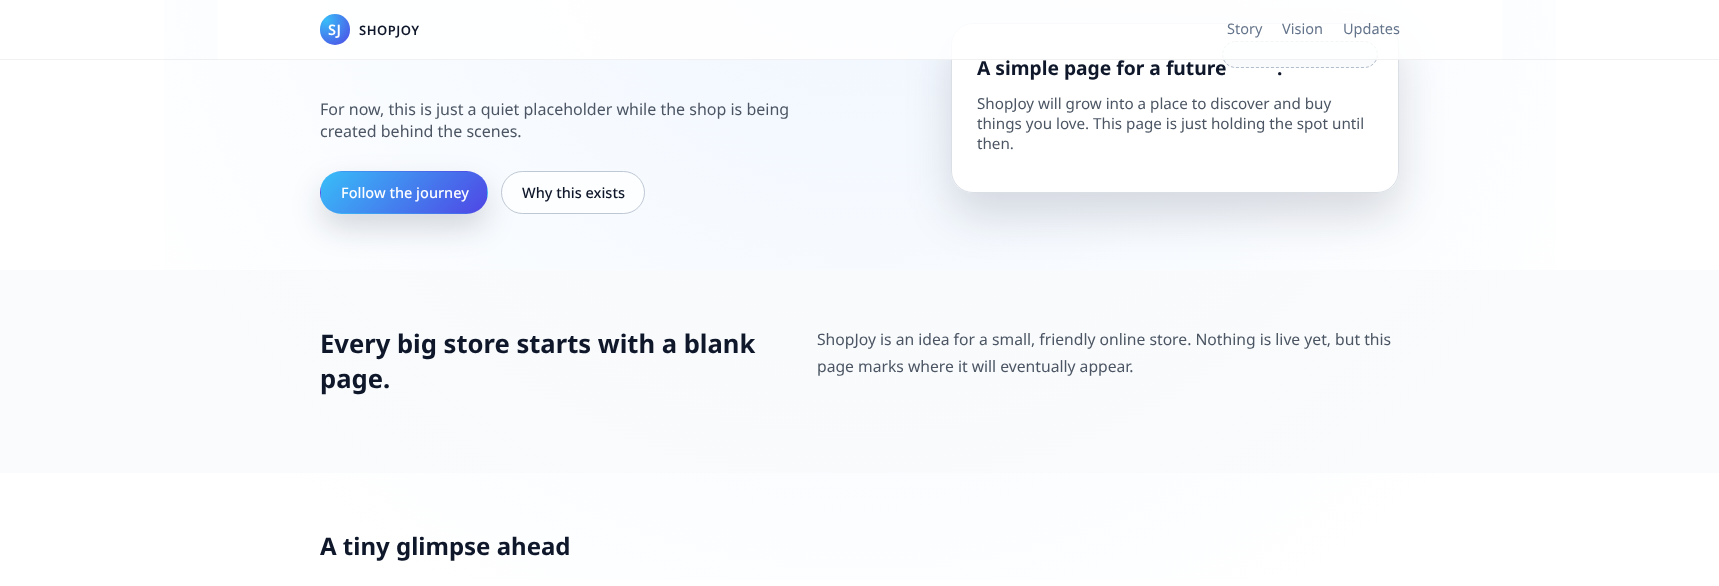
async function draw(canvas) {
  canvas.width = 1719;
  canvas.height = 586;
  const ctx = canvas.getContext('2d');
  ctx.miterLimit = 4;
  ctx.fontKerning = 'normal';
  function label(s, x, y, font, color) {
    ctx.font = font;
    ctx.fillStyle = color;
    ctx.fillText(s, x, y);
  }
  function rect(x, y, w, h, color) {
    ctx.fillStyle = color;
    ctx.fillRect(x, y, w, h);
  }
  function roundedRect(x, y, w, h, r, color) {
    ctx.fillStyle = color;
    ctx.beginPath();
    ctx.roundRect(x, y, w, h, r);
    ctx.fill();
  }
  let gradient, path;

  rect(0, 0, 1719, 586, '#fff');
  gradient = ctx.createRadialGradient(860, -131, 0, 860, -131, 1539);
  gradient.addColorStop(0, '#eff6ff');
  gradient.addColorStop(0.55, '#fff');
  ctx.fillStyle = gradient;
  ctx.fillRect(164, 0, 1392, 580);
  gradient = ctx.createRadialGradient(860, -131, 0, 860, -131, 1539);
  gradient.addColorStop(0, '#f7f9fc');
  gradient.addColorStop(0.55, '#f9fbfc');
  ctx.fillStyle = gradient;
  ctx.fillRect(0, 270, 1719, 203);
  ctx.save();
  path = new Path2D('M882 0H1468V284H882ZM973 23H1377C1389 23 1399 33 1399 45V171C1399 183 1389 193 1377 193H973C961 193 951 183 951 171V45C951 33 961 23 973 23Z');
  ctx.clip(path, 'evenodd');
  ctx.fillStyle = '#0f172a26';
  ctx.filter = 'blur(22.5px)';
  ctx.beginPath();
  ctx.roundRect(951, 45, 448, 170, 22);
  ctx.fill();
  ctx.filter = 'none';
  ctx.restore();
  roundedRect(951, 23, 448, 170, 22, '#fffffff5');
  ctx.beginPath();
  ctx.roundRect(951.5, 23.5, 447, 169, 21.5);
  ctx.strokeStyle = '#94a3b859';
  ctx.stroke();
  label('A simple page for a future', 977, 75, 'bold 19.25px Noto Sans', '#0f172a');
  roundedRect(1222, 41, 156, 27, 13.5, '#f8fafce6');
  path = new Path2D('M1235.5 41.5H1364.5C1371.5 41.5 1377.5 47.5 1377.5 54.5C1377.5 61.5 1371.5 67.5 1364.5 67.5H1235.5C1228.5 67.5 1222.5 61.5 1222.5 54.5C1222.5 47.5 1228.5 41.5 1235.5 41.5Z');
  ctx.strokeStyle = '#94a3b8b3';
  ctx.setLineDash([3, 2]);
  ctx.stroke(path);
  rect(218, 0, 1284, 60, '#ffffffd9');
  rect(0, 59, 1719, 1, '#0f172a0f');
  gradient = ctx.createRadialGradient(326, 20, 0, 326, 20, 35);
  gradient.addColorStop(0, '#38bdf8');
  gradient.addColorStop(1, '#4f46e5');
  ctx.fillStyle = gradient;
  ctx.beginPath();
  ctx.roundRect(320, 14, 30, 31, 15);
  ctx.fill();
  ctx.letterSpacing = '0.5px';
  label('SJ', 328, 35, '600 14.5px Noto Sans', '#fff');
  label('SHOPJOY', 359, 35, '600 13px Noto Sans', '#0f172a');
  ctx.letterSpacing = '0px';
  label('Story', 1227, 34, '14.5px Noto Sans', '#64748b');
  label('Vision', 1282, 34, '14.5px Noto Sans', '#64748b');
  label('Updates', 1343, 34, '14.5px Noto Sans', '#64748b');
  label('For now, this is just a quiet placeholder while the shop is being', 320, 115, '16px Noto Sans', '#4b5563');
  label('created behind the scenes.', 320, 137, '16px Noto Sans', '#4b5563');
  ctx.fillStyle = '#0f172a29';
  ctx.filter = 'blur(15px)';
  ctx.beginPath();
  ctx.roundRect(320, 185, 168, 43, 21.5);
  ctx.fill();
  ctx.filter = 'none';
  ctx.save();
  ctx.beginPath();
  ctx.roundRect(320, 171, 168, 43, 21.5);
  ctx.clip();
  gradient = ctx.createLinearGradient(352, 100, 456, 203);
  gradient.addColorStop(0, '#38bdf8');
  gradient.addColorStop(1, '#4f46e5');
  ctx.fillStyle = gradient;
  ctx.fillRect(335, 171, 138, 1);
  gradient = ctx.createLinearGradient(186, 141, 290, 244);
  gradient.addColorStop(0, '#38bdf8');
  gradient.addColorStop(1, '#4f46e5');
  ctx.fillStyle = gradient;
  ctx.fillRect(320, 186, 1, 13);
  gradient = ctx.createLinearGradient(352, 141, 456, 244);
  gradient.addColorStop(0, '#38bdf8');
  gradient.addColorStop(1, '#4f46e5');
  ctx.fillStyle = gradient;
  ctx.fillRect(321, 172, 166, 41);
  gradient = ctx.createLinearGradient(518, 141, 622, 244);
  gradient.addColorStop(0, '#38bdf8');
  gradient.addColorStop(1, '#4f46e5');
  ctx.fillStyle = gradient;
  ctx.fillRect(487, 186, 1, 13);
  gradient = ctx.createLinearGradient(352, 182, 456, 285);
  gradient.addColorStop(0, '#38bdf8');
  gradient.addColorStop(1, '#4f46e5');
  ctx.fillStyle = gradient;
  ctx.fillRect(335, 213, 138, 1);
  ctx.restore();
  label('Follow the journey', 341, 198, '500 14.5px Noto Sans', '#fff');
  roundedRect(501, 171, 144, 43, 21.5, '#ffffffb3');
  ctx.beginPath();
  ctx.roundRect(501.5, 171.5, 143, 42, 21);
  ctx.strokeStyle = '#94a3b899';
  ctx.setLineDash([]);
  ctx.stroke();
  label('Why this exists', 522, 198, '500 14.5px Noto Sans', '#0f172a');
  label('.', 1277, 75, 'bold 19.25px Noto Sans', '#0f172a');
  label('ShopJoy will grow into a place to discover and buy', 977, 109, '15.2px Noto Sans', '#4b5563');
  label('things you love. This page is just holding the spot until', 977, 129, '15.2px Noto Sans', '#4b5563');
  label('then.', 977, 149, '15.2px Noto Sans', '#4b5563');
  label('Every big store starts with a blank', 320, 353, 'bold 25.6px Noto Sans', '#0f172a');
  label('page.', 320, 388, 'bold 25.6px Noto Sans', '#0f172a');
  label('ShopJoy is an idea for a small, friendly online store. Nothing is live yet, but this', 817, 345, '15.7px Noto Sans', '#4b5563');
  label('page marks where it will eventually appear.', 817, 372, '15.7px Noto Sans', '#4b5563');
  label('A tiny glimpse ahead', 320, 555, 'bold 24px Noto Sans', '#0f172a');
}

draw(document.querySelector('canvas'));
